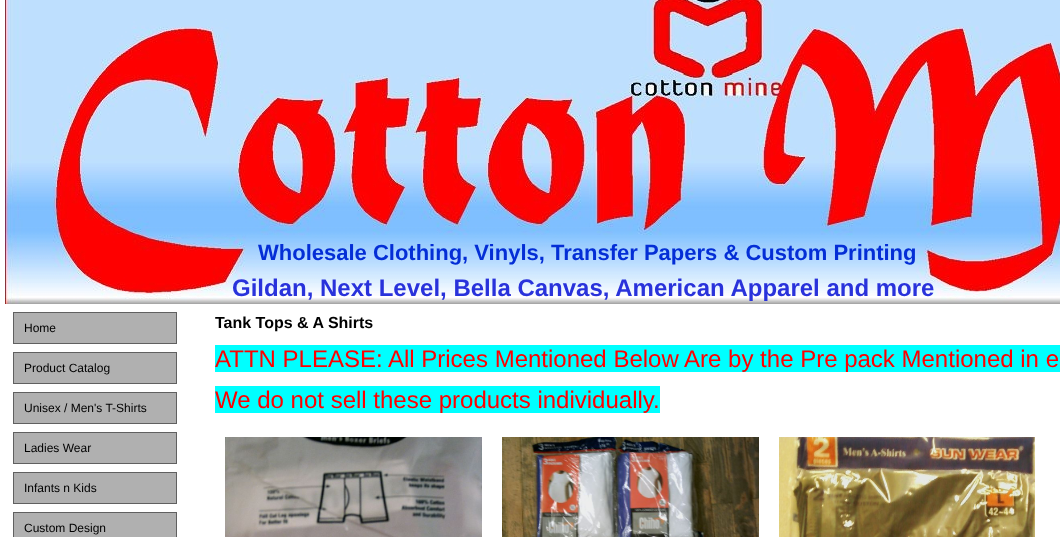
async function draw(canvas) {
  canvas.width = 1060;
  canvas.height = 537;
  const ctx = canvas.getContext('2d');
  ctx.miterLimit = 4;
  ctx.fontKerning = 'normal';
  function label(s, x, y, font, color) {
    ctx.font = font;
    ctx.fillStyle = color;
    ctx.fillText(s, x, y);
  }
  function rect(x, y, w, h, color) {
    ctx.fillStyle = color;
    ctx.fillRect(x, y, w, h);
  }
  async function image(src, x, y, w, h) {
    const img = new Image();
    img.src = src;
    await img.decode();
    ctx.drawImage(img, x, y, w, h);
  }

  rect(0, 0, 1060, 537, '#fff');
  await image('assets/img1.png', 5, 0, 1055, 304);
  label('Wholesale Clothing, Vinyls, Transfer Papers & Custom Printing', 258, 260, 'bold 22px Liberation Sans', '#042ed6');
  label('Gildan, Next Level, Bella Canvas, American Apparel and more', 232, 296, 'bold 24px Liberation Sans', '#2932db');
  rect(13, 312, 164, 32, '#606060');
  rect(14, 313, 162, 30, '#b0b0b0');
  label('Home', 24, 332, '12px Liberation Sans', '#000');
  rect(13, 352, 164, 32, '#606060');
  rect(14, 353, 162, 30, '#b0b0b0');
  label('Product Catalog', 24, 372, '12px Liberation Sans', '#000');
  rect(13, 392, 164, 32, '#606060');
  rect(14, 393, 162, 30, '#b0b0b0');
  label('Unisex / Men\'s T-Shirts', 24, 412, '12px Liberation Sans', '#000');
  rect(13, 432, 164, 32, '#606060');
  rect(14, 433, 162, 30, '#b0b0b0');
  label('Ladies Wear', 24, 452, '12px Liberation Sans', '#000');
  rect(13, 472, 164, 32, '#606060');
  rect(14, 473, 162, 30, '#b0b0b0');
  label('Infants n Kids', 24, 492, '12px Liberation Sans', '#000');
  rect(13, 512, 164, 25, '#606060');
  rect(14, 513, 162, 24, '#b0b0b0');
  label('Custom Design', 24, 532, '12px Liberation Sans', '#000');
  label('Tank Tops & A Shirts', 215, 328, 'bold 16px Liberation Sans', '#000');
  rect(215, 345, 845, 27, '#0ff');
  label('ATTN PLEASE: All Prices Mentioned Below Are by the Pre pack Mentioned in e', 215, 367, '24px Liberation Sans', '#f00');
  rect(215, 386, 445, 27, '#0ff');
  label('We do not sell these products individually.', 215, 408, '24px Liberation Sans', '#f00');
  await image('assets/img2.png', 225, 437, 257, 100);
  await image('assets/img3.png', 502, 437, 257, 100);
  await image('assets/img4.png', 779, 437, 256, 100);
}

draw(document.querySelector('canvas'));
